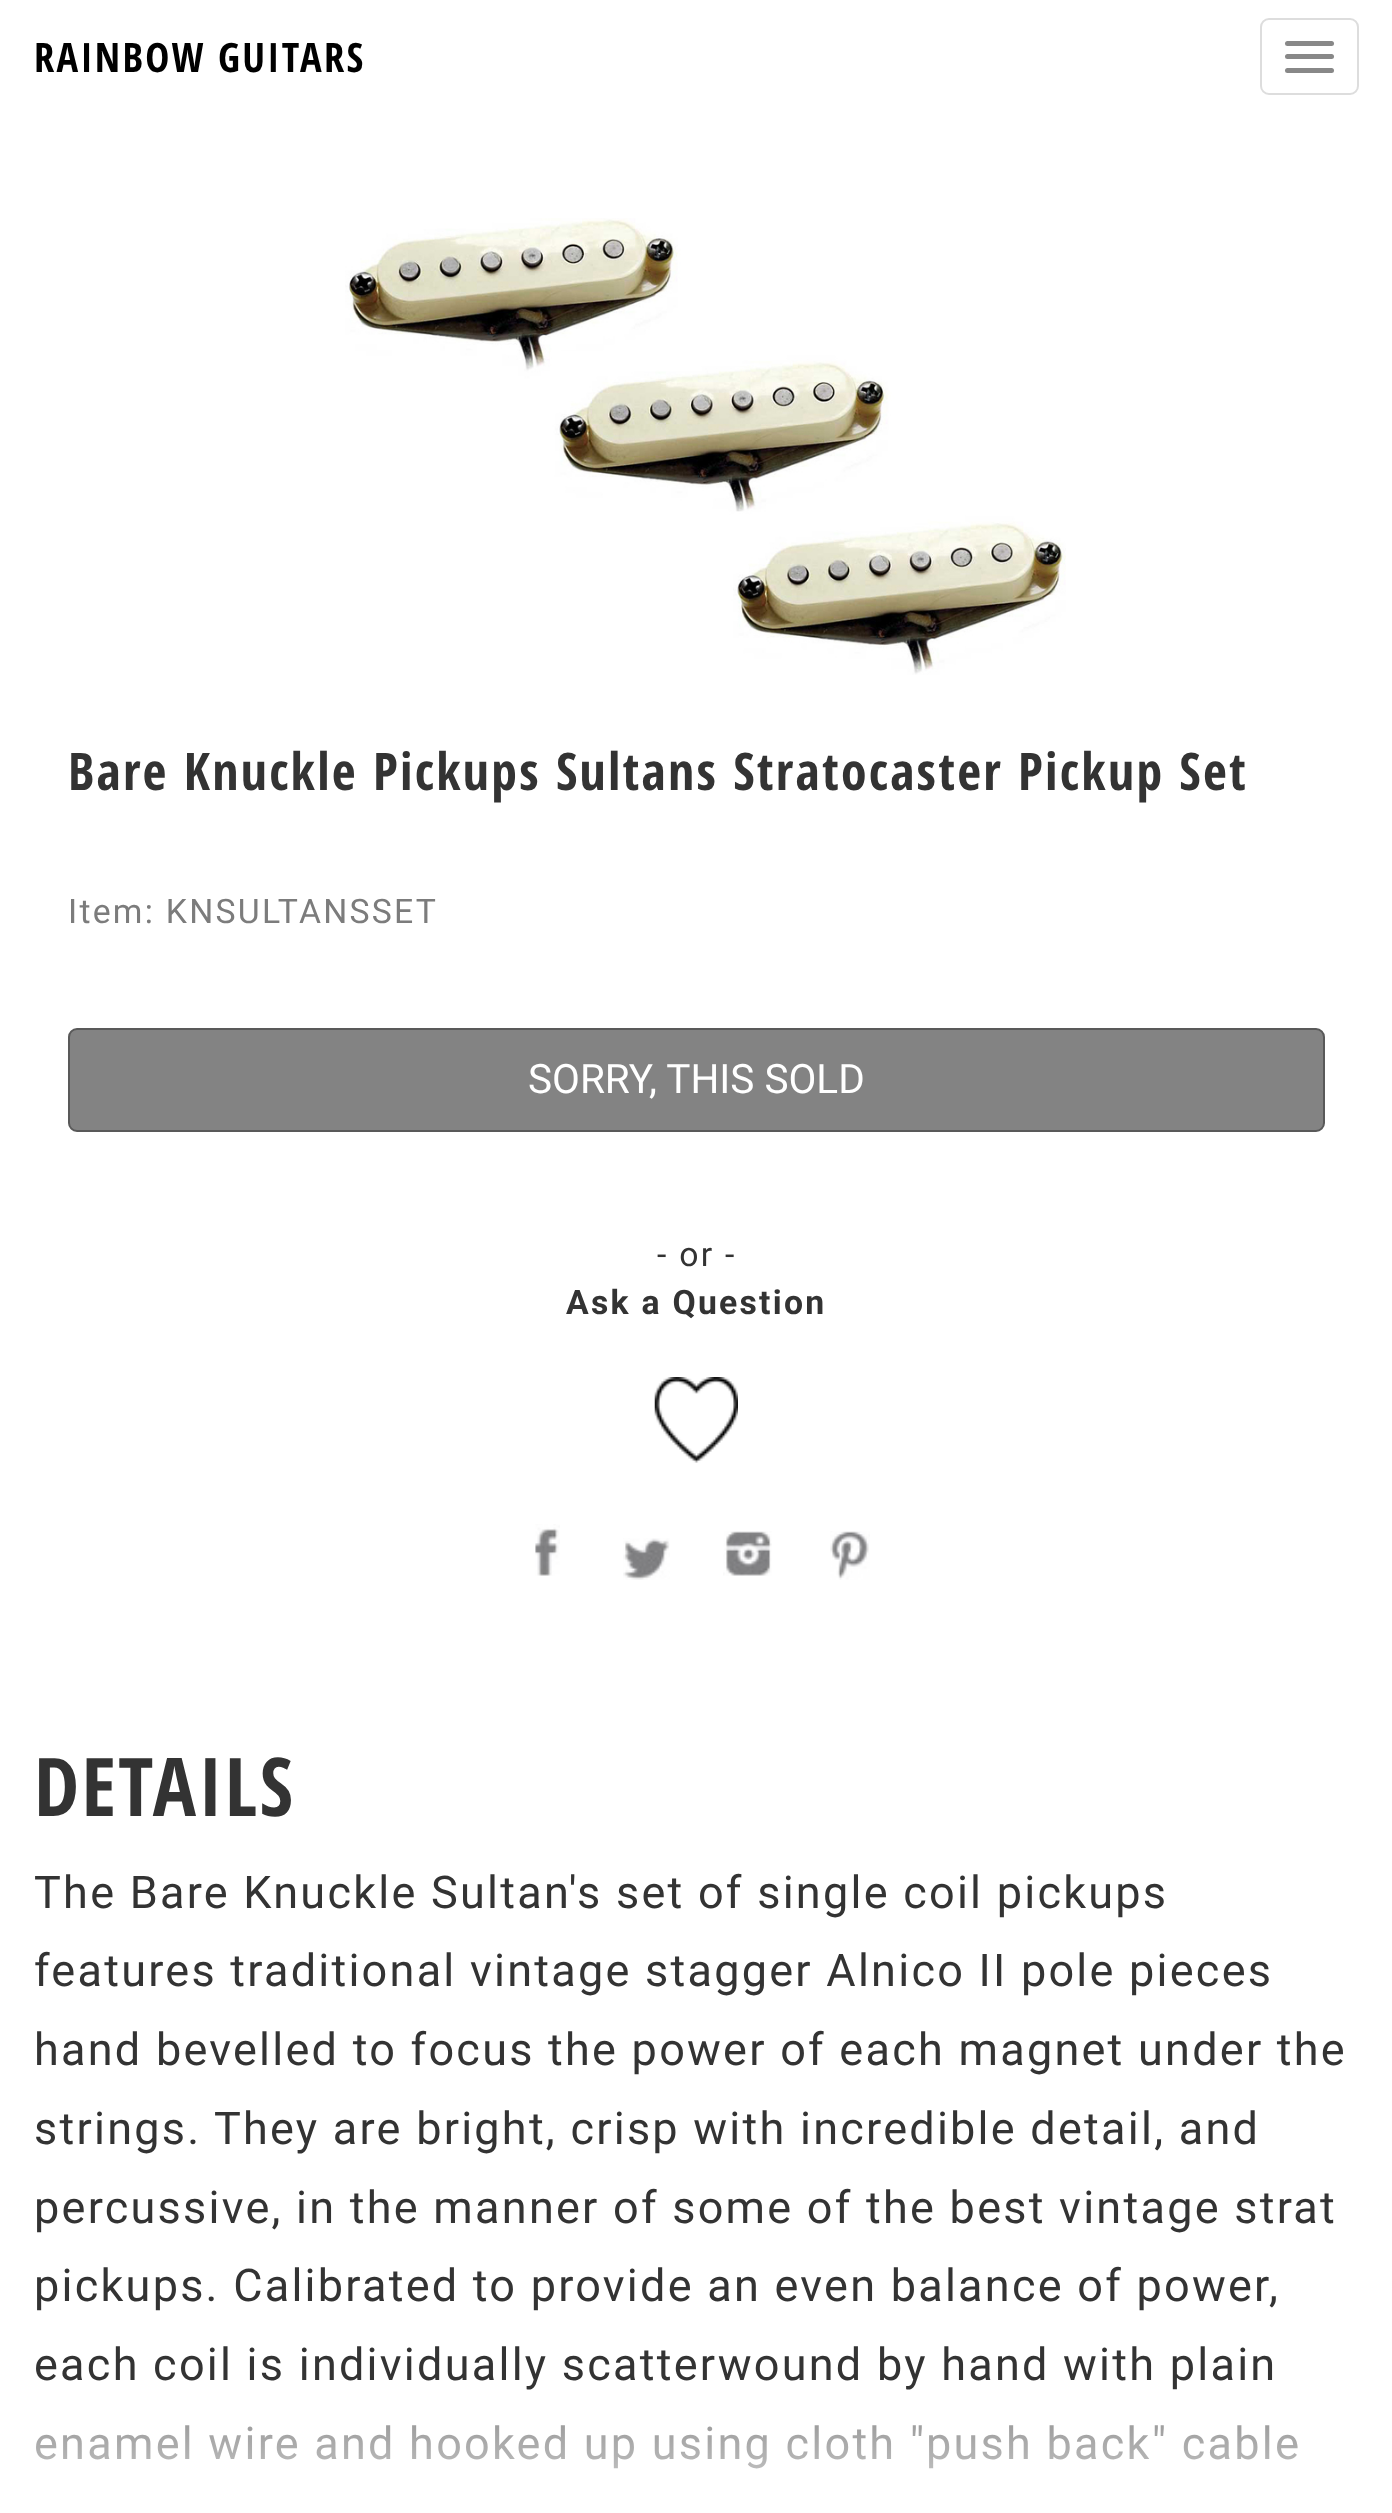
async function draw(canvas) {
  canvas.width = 1392;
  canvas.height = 2513;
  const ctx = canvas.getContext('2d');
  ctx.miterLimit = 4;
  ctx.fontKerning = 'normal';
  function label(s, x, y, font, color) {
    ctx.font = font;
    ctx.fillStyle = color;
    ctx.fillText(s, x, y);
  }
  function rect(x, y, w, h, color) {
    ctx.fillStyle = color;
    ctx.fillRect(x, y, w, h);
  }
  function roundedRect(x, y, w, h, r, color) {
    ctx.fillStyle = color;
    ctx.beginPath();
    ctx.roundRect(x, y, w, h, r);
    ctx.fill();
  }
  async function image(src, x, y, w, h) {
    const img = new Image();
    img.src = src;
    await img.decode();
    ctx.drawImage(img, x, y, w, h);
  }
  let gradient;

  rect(0, 0, 1392, 2513, '#fff');
  ctx.letterSpacing = '2.25px';
  label('RAINBOW GUITARS', 34, 72, 'bold 40.5px Open Sans Condensed', '#000');
  ctx.beginPath();
  ctx.roundRect(1261, 19, 97, 75, 8);
  ctx.strokeStyle = '#ddd';
  ctx.lineWidth = 2;
  ctx.stroke();
  roundedRect(1285, 41, 49, 5, 2.5, '#888');
  roundedRect(1285, 54, 49, 5, 2.5, '#888');
  roundedRect(1285, 68, 49, 5, 2.5, '#888');
  await image('assets/img1.png', 345, 218, 721, 457);
  label('Bare Knuckle Pickups Sultans Stratocaster Pickup Set', 68, 790, 'bold 51.75px Open Sans Condensed', '#333');
  label('Item: KNSULTANSSET', 68, 923, '33.75px Roboto', '#7c7c7c');
  ctx.fillStyle = '#838383';
  ctx.beginPath();
  ctx.roundRect(69, 1029, 1255, 102, 8);
  ctx.fill();
  ctx.strokeStyle = '#595959';
  ctx.stroke();
  ctx.letterSpacing = '0px';
  label('SORRY, THIS SOLD', 528, 1093, '40.5px Roboto', '#fff');
  ctx.letterSpacing = '2.25px';
  label('- or -', 657, 1266, '33.75px Roboto', '#333');
  label('Ask a Question', 566, 1314, 'bold 33.75px Roboto', '#333');
  await image('assets/img2.png', 654, 1377, 84, 86);
  await image('assets/img3.png', 535, 1524, 25, 52);
  await image('assets/img4.png', 623, 1538, 47, 42);
  await image('assets/img5.png', 723, 1531, 49, 45);
  await image('assets/img6.png', 830, 1531, 40, 49);
  label('DETAILS', 34, 1816, 'bold 81px Open Sans Condensed', '#333');
  label('The Bare Knuckle Sultan\'s set of single coil pickups', 34, 1908, '45px Roboto', '#333');
  label('features traditional vintage stagger Alnico II pole pieces', 34, 1986, '45px Roboto', '#333');
  label('hand bevelled to focus the power of each magnet under the', 34, 2065, '45px Roboto', '#333');
  label('strings. They are bright, crisp with incredible detail, and', 34, 2144, '45px Roboto', '#333');
  label('percussive, in the manner of some of the best vintage strat', 34, 2223, '45px Roboto', '#333');
  label('pickups. Calibrated to provide an even balance of power,', 34, 2301, '45px Roboto', '#333');
  label('each coil is individually scatterwound by hand with plain', 34, 2380, '45px Roboto', '#333');
  label('enamel wire and hooked up using cloth "push back" cable', 34, 2459, '45px Roboto', '#333');
  gradient = ctx.createLinearGradient(696, 2417, 696, 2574);
  gradient.addColorStop(0, '#ffffff80');
  gradient.addColorStop(1, '#fff');
  ctx.fillStyle = gradient;
  ctx.fillRect(35, 2425, 1262, 44);
}

draw(document.querySelector('canvas'));
